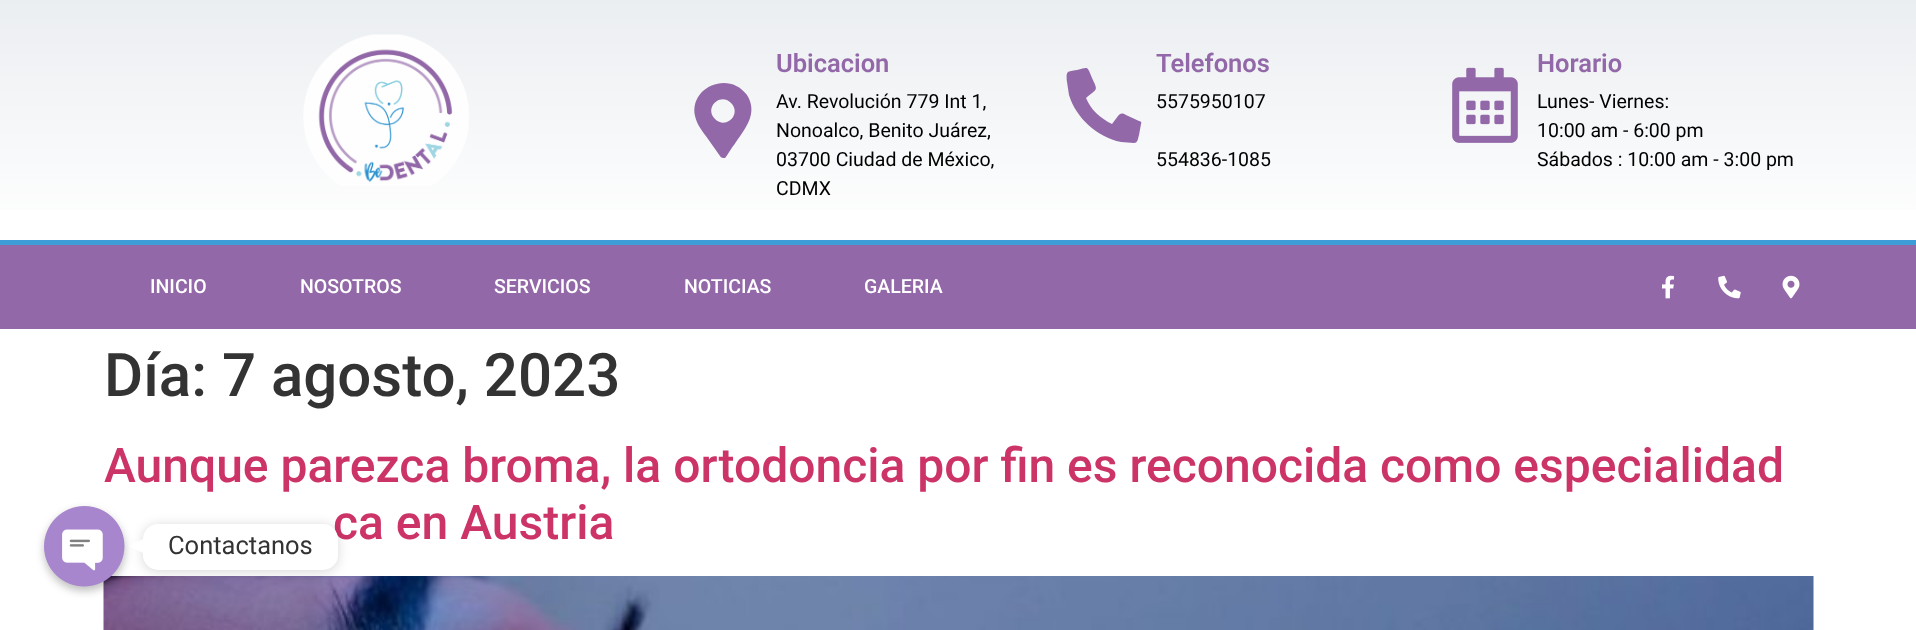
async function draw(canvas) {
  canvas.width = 1916;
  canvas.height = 630;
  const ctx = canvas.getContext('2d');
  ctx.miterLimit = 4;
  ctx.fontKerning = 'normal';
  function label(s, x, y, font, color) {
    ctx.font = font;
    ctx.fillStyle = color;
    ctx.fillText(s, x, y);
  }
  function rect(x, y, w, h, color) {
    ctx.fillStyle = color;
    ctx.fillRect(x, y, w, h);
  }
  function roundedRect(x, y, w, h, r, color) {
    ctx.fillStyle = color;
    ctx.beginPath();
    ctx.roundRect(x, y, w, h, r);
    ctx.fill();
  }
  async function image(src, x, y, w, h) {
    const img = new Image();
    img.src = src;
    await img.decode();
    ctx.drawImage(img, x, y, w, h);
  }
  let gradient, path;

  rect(0, 0, 1916, 630, '#fff');
  gradient = ctx.createLinearGradient(959, 0, 959, 240);
  gradient.addColorStop(0, '#ebeef1');
  gradient.addColorStop(1, '#fff');
  ctx.fillStyle = gradient;
  ctx.fillRect(0, 0, 1916, 210);
  await image('assets/img1.png', 303, 34, 166, 152);
  ctx.fillStyle = '#9368a9';
  path = new Path2D('M720 156L708 139C703 132 697 125 695 116C689 87 729 70 747 95C759 114 744 130 734 145C732 147 727 156 725 158C723 158 721 158 720 156ZM715 119C726 130 742 114 731 103C720 92 704 108 715 119Z');
  ctx.fill(path);
  label('Ubicacion', 776, 72, '600 25.5px Roboto', '#9368a9');
  label('Av. Revolución 779 Int 1,', 776, 108, '19.5px Roboto', '#000');
  label('Nonoalco, Benito Juárez,', 776, 137, '19.5px Roboto', '#000');
  label('03700 Ciudad de México,', 776, 166, '19.5px Roboto', '#000');
  label('CDMX', 776, 195, '19.5px Roboto', '#000');
  ctx.fillStyle = '#9368a9';
  path = new Path2D('M1139 121C1141 121 1142 123 1141 124L1139 135C1138 138 1138 143 1134 143L1121 142C1097 137 1076 118 1069 95L1067 82C1066 70 1067 72 1077 70C1089 67 1087 66 1092 78C1098 91 1098 88 1086 98C1091 110 1100 118 1112 124L1118 116C1121 113 1122 113 1126 115Z');
  ctx.fill(path);
  label('Telefonos', 1156, 72, '600 25.5px Roboto', '#9368a9');
  label('5575950107', 1156, 108, '19.5px Roboto', '#000');
  label('554836-1085', 1156, 166, '19.5px Roboto', '#000');
  await image('assets/img2.png', 1452, 67, 66, 76);
  label('Horario', 1537, 72, '600 25.5px Roboto', '#9368a9');
  label('Lunes- Viernes:', 1537, 108, '19.5px Roboto', '#000');
  label('10:00 am - 6:00 pm', 1537, 137, '19.5px Roboto', '#000');
  label('Sábados : 10:00 am - 3:00 pm', 1537, 166, '19.5px Roboto', '#000');
  rect(0, 245, 1916, 84, '#9368a9');
  rect(0, 240, 1916, 5, '#3e9dd6');
  label('INICIO', 150, 293, '500 19.5px Roboto', '#fff');
  label('NOSOTROS', 300, 293, '500 19.5px Roboto', '#fff');
  label('SERVICIOS', 494, 293, '500 19.5px Roboto', '#fff');
  label('NOTICIAS', 684, 293, '500 19.5px Roboto', '#fff');
  label('GALERIA', 864, 293, '500 19.5px Roboto', '#fff');
  await image('assets/img3.png', 1662, 275, 12, 24);
  await image('assets/img4.png', 1718, 275, 23, 24);
  await image('assets/img5.png', 1782, 275, 18, 24);
  label('Día: 7 agosto, 2023', 104, 396, '500 60px Roboto', '#333');
  label('Aunque parezca broma, la ortodoncia por fin es reconocida como especialidad', 104, 482, '500 48px Roboto', '#c36');
  label('ca en Austria', 333, 539, '500 48px Roboto', '#c36');
  await image('assets/img6.png', 103, 576, 1711, 54);
  ctx.fillStyle = '#00000040';
  ctx.filter = 'blur(4.5px)';
  ctx.beginPath();
  ctx.roundRect(44, 510, 81, 81, 40.5);
  ctx.fill();
  ctx.filter = 'none';
  await image('assets/img7.png', 44, 506, 81, 81);
  ctx.fillStyle = '#00000026';
  ctx.filter = 'blur(6px)';
  ctx.beginPath();
  ctx.roundRect(143, 525, 195, 47, 15);
  ctx.fill();
  ctx.filter = 'none';
  roundedRect(143, 524, 195, 46, 15, '#fff');
  label('Contactanos', 168, 554, '25.5px Roboto', '#333');
  ctx.fillStyle = '#fff';
  path = new Path2D('M144 538.5V553.5L129 546Z');
  ctx.fill(path);
}

draw(document.querySelector('canvas'));
